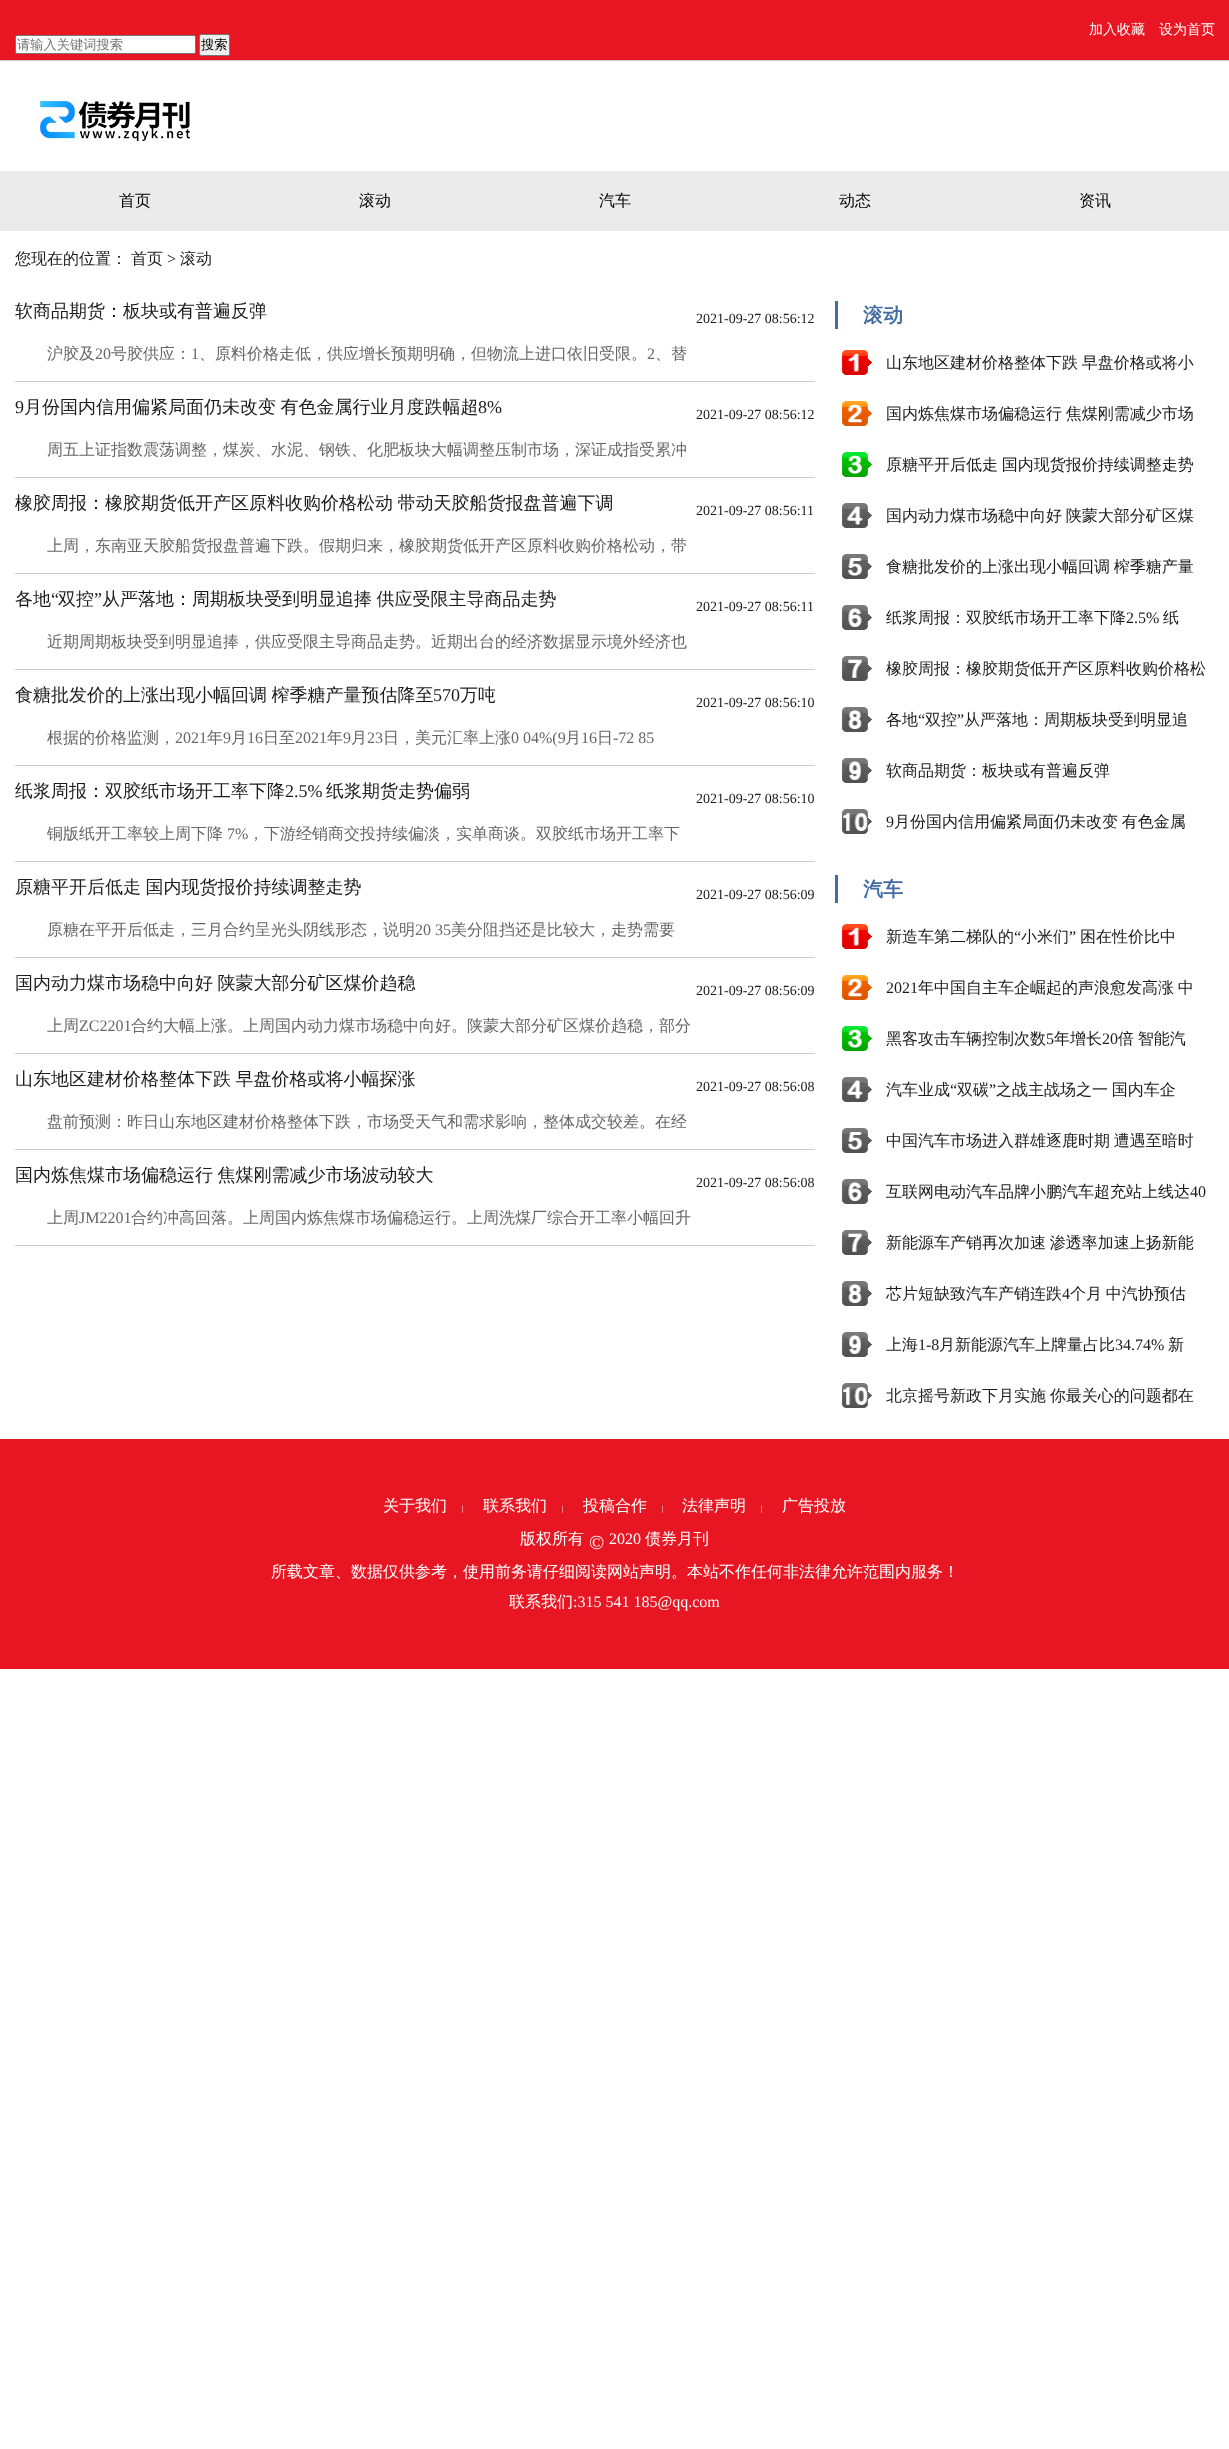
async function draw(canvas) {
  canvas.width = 1229;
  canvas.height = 2449;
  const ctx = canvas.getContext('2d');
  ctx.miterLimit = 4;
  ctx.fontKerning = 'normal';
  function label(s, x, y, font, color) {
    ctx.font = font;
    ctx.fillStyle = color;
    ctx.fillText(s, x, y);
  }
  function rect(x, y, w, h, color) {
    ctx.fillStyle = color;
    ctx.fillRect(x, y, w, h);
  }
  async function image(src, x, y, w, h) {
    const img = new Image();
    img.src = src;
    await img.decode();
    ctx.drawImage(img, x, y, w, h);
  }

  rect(0, 0, 1229, 2449, '#fff');
  rect(0, 0, 1229, 60, '#e71622');
  rect(0, 60, 1229, 1, '#ccc');
  label('加入收藏', 1089, 34, '500 14px WenQuanYi Zen Hei', '#fff');
  label('设为首页', 1159, 34, '500 14px WenQuanYi Zen Hei', '#fff');
  ctx.beginPath();
  ctx.roundRect(15.5, 35.5, 180, 18, 1.5);
  ctx.fill();
  ctx.strokeStyle = '#767676';
  ctx.stroke();
  label('请输入关键词搜索', 17, 49, '500 13.25px WenQuanYi Zen Hei', '#757575');
  ctx.fillStyle = '#efefef';
  ctx.beginPath();
  ctx.roundRect(199.5, 34.5, 30, 21, 1.5);
  ctx.fill();
  ctx.stroke();
  label('搜索', 201, 49, '500 13.25px WenQuanYi Zen Hei', '#000');
  await image('assets/img1.png', 40, 101, 150, 40);
  rect(0, 171, 1229, 60, '#ebebeb');
  label('首页', 119, 206, '500 16px WenQuanYi Zen Hei', '#000');
  label('滚动', 359, 206, '500 16px WenQuanYi Zen Hei', '#000');
  label('汽车', 599, 206, '500 16px WenQuanYi Zen Hei', '#000');
  label('动态', 839, 206, '500 16px WenQuanYi Zen Hei', '#000');
  label('资讯', 1079, 206, '500 16px WenQuanYi Zen Hei', '#000');
  label('您现在的位置：', 15, 264, '500 16px WenQuanYi Zen Hei', '#1b1b1b');
  label('首页', 131, 264, '500 16px WenQuanYi Zen Hei', '#1b1b1b');
  label('>', 167, 264, '16px Liberation Serif', '#1b1b1b');
  label('滚动', 180, 264, '500 16px WenQuanYi Zen Hei', '#1b1b1b');
  rect(15, 381, 800, 1, '#ccc');
  label('软商品期货：板块或有普遍反弹', 15, 317, '500 18px WenQuanYi Zen Hei', '#1b1b1b');
  label('2021-09-27 08:56:12', 696, 323, '14px Liberation Serif', '#1b1b1b');
  label('沪胶及', 47, 359, '500 16px WenQuanYi Zen Hei', '#666');
  label('20', 95, 359, '16px Liberation Serif', '#666');
  label('号胶供应：', 111, 359, '500 16px WenQuanYi Zen Hei', '#666');
  label('1', 191, 359, '16px Liberation Serif', '#666');
  label('、原料价格走低，供应增长预期明确，但物流上进口依旧受限。', 199, 359, '500 16px WenQuanYi Zen Hei', '#666');
  label('2', 647, 359, '16px Liberation Serif', '#666');
  label('、替', 655, 359, '500 16px WenQuanYi Zen Hei', '#666');
  rect(15, 477, 800, 1, '#ccc');
  label('9', 15, 413, '18px Liberation Serif', '#1b1b1b');
  ctx.wordSpacing = '-1px';
  label('月份国内信用偏紧局面仍未改变 有色金属行业月度跌幅超', 24, 413, '500 18px WenQuanYi Zen Hei', '#1b1b1b');
  ctx.wordSpacing = '0px';
  label('8%', 478, 413, '18px Liberation Serif', '#1b1b1b');
  label('2021-09-27 08:56:12', 696, 419, '14px Liberation Serif', '#1b1b1b');
  label('周五上证指数震荡调整，煤炭、水泥、钢铁、化肥板块大幅调整压制市场，深证成指受累冲', 47, 455, '500 16px WenQuanYi Zen Hei', '#666');
  rect(15, 573, 800, 1, '#ccc');
  ctx.wordSpacing = '-1px';
  label('橡胶周报：橡胶期货低开产区原料收购价格松动 带动天胶船货报盘普遍下调', 15, 509, '500 18px WenQuanYi Zen Hei', '#1b1b1b');
  ctx.wordSpacing = '0px';
  label('2021-09-27 08:56:11', 696, 515, '14px Liberation Serif', '#1b1b1b');
  label('上周，东南亚天胶船货报盘普遍下跌。假期归来，橡胶期货低开产区原料收购价格松动，带', 47, 551, '500 16px WenQuanYi Zen Hei', '#666');
  rect(15, 669, 800, 1, '#ccc');
  label('各地', 15, 605, '500 18px WenQuanYi Zen Hei', '#1b1b1b');
  label('“', 51, 605, '18px Liberation Serif', '#1b1b1b');
  label('双控', 58, 605, '500 18px WenQuanYi Zen Hei', '#1b1b1b');
  label('”', 94, 605, '18px Liberation Serif', '#1b1b1b');
  ctx.wordSpacing = '-1px';
  label('从严落地：周期板块受到明显追捧 供应受限主导商品走势', 102, 605, '500 18px WenQuanYi Zen Hei', '#1b1b1b');
  ctx.wordSpacing = '0px';
  label('2021-09-27 08:56:11', 696, 611, '14px Liberation Serif', '#1b1b1b');
  label('近期周期板块受到明显追捧，供应受限主导商品走势。近期出台的经济数据显示境外经济也', 47, 647, '500 16px WenQuanYi Zen Hei', '#666');
  rect(15, 765, 800, 1, '#ccc');
  ctx.wordSpacing = '-1px';
  label('食糖批发价的上涨出现小幅回调 榨季糖产量预估降至', 15, 701, '500 18px WenQuanYi Zen Hei', '#1b1b1b');
  ctx.wordSpacing = '0px';
  label('570', 433, 701, '18px Liberation Serif', '#1b1b1b');
  label('万吨', 460, 701, '500 18px WenQuanYi Zen Hei', '#1b1b1b');
  label('2021-09-27 08:56:10', 696, 707, '14px Liberation Serif', '#1b1b1b');
  label('根据的价格监测，', 47, 743, '500 16px WenQuanYi Zen Hei', '#666');
  label('2021', 175, 743, '16px Liberation Serif', '#666');
  label('年', 207, 743, '500 16px WenQuanYi Zen Hei', '#666');
  label('9', 223, 743, '16px Liberation Serif', '#666');
  label('月', 231, 743, '500 16px WenQuanYi Zen Hei', '#666');
  label('16', 247, 743, '16px Liberation Serif', '#666');
  label('日至', 263, 743, '500 16px WenQuanYi Zen Hei', '#666');
  label('2021', 295, 743, '16px Liberation Serif', '#666');
  label('年', 327, 743, '500 16px WenQuanYi Zen Hei', '#666');
  label('9', 343, 743, '16px Liberation Serif', '#666');
  label('月', 351, 743, '500 16px WenQuanYi Zen Hei', '#666');
  label('23', 367, 743, '16px Liberation Serif', '#666');
  label('日，美元汇率上涨', 383, 743, '500 16px WenQuanYi Zen Hei', '#666');
  label('0 04%(9', 511, 743, '16px Liberation Serif', '#666');
  label('月', 565, 743, '500 16px WenQuanYi Zen Hei', '#666');
  label('16', 581, 743, '16px Liberation Serif', '#666');
  label('日', 597, 743, '500 16px WenQuanYi Zen Hei', '#666');
  label('-72 85', 613, 743, '16px Liberation Serif', '#666');
  rect(15, 861, 800, 1, '#ccc');
  label('纸浆周报：双胶纸市场开工率下降', 15, 797, '500 18px WenQuanYi Zen Hei', '#1b1b1b');
  label('2.5%', 285, 797, '18px Liberation Serif', '#1b1b1b');
  label('纸浆期货走势偏弱', 326, 797, '500 18px WenQuanYi Zen Hei', '#1b1b1b');
  label('2021-09-27 08:56:10', 696, 803, '14px Liberation Serif', '#1b1b1b');
  label('铜版纸开工率较上周下降', 47, 839, '500 16px WenQuanYi Zen Hei', '#666');
  label('7%', 227, 839, '16px Liberation Serif', '#666');
  label('，下游经销商交投持续偏淡，实单商谈。双胶纸市场开工率下', 248, 839, '500 16px WenQuanYi Zen Hei', '#666');
  rect(15, 957, 800, 1, '#ccc');
  ctx.wordSpacing = '-1px';
  label('原糖平开后低走 国内现货报价持续调整走势', 15, 893, '500 18px WenQuanYi Zen Hei', '#1b1b1b');
  ctx.wordSpacing = '0px';
  label('2021-09-27 08:56:09', 696, 899, '14px Liberation Serif', '#1b1b1b');
  label('原糖在平开后低走，三月合约呈光头阴线形态，说明', 47, 935, '500 16px WenQuanYi Zen Hei', '#666');
  label('20 35', 415, 935, '16px Liberation Serif', '#666');
  label('美分阻挡还是比较大，走势需要', 451, 935, '500 16px WenQuanYi Zen Hei', '#666');
  rect(15, 1053, 800, 1, '#ccc');
  ctx.wordSpacing = '-1px';
  label('国内动力煤市场稳中向好 陕蒙大部分矿区煤价趋稳', 15, 989, '500 18px WenQuanYi Zen Hei', '#1b1b1b');
  ctx.wordSpacing = '0px';
  label('2021-09-27 08:56:09', 696, 995, '14px Liberation Serif', '#1b1b1b');
  label('上周', 47, 1031, '500 16px WenQuanYi Zen Hei', '#666');
  label('ZC2201', 79, 1031, '16px Liberation Serif', '#666');
  label('合约大幅上涨。上周国内动力煤市场稳中向好。陕蒙大部分矿区煤价趋稳，部分', 131, 1031, '500 16px WenQuanYi Zen Hei', '#666');
  rect(15, 1149, 800, 1, '#ccc');
  ctx.wordSpacing = '-1px';
  label('山东地区建材价格整体下跌 早盘价格或将小幅探涨', 15, 1085, '500 18px WenQuanYi Zen Hei', '#1b1b1b');
  ctx.wordSpacing = '0px';
  label('2021-09-27 08:56:08', 696, 1091, '14px Liberation Serif', '#1b1b1b');
  label('盘前预测：昨日山东地区建材价格整体下跌，市场受天气和需求影响，整体成交较差。在经', 47, 1127, '500 16px WenQuanYi Zen Hei', '#666');
  rect(15, 1245, 800, 1, '#ccc');
  ctx.wordSpacing = '-1px';
  label('国内炼焦煤市场偏稳运行 焦煤刚需减少市场波动较大', 15, 1181, '500 18px WenQuanYi Zen Hei', '#1b1b1b');
  ctx.wordSpacing = '0px';
  label('2021-09-27 08:56:08', 696, 1187, '14px Liberation Serif', '#1b1b1b');
  label('上周', 47, 1223, '500 16px WenQuanYi Zen Hei', '#666');
  label('JM2201', 79, 1223, '16px Liberation Serif', '#666');
  label('合约冲高回落。上周国内炼焦煤市场偏稳运行。上周洗煤厂综合开工率小幅回升', 131, 1223, '500 16px WenQuanYi Zen Hei', '#666');
  rect(835, 301, 3, 28, '#436da2');
  label('滚动', 863, 322, 'bold 20px WenQuanYi Zen Hei', '#436da2');
  await image('assets/img2.png', 842, 350, 30, 25);
  ctx.wordSpacing = '-1px';
  label('山东地区建材价格整体下跌 早盘价格或将小', 886, 368, '500 16px WenQuanYi Zen Hei', '#1b1b1b');
  await image('assets/img3.png', 842, 401, 30, 25);
  label('国内炼焦煤市场偏稳运行 焦煤刚需减少市场', 886, 419, '500 16px WenQuanYi Zen Hei', '#1b1b1b');
  await image('assets/img4.png', 842, 452, 30, 25);
  label('原糖平开后低走 国内现货报价持续调整走势', 886, 470, '500 16px WenQuanYi Zen Hei', '#1b1b1b');
  await image('assets/img5.png', 842, 503, 30, 25);
  label('国内动力煤市场稳中向好 陕蒙大部分矿区煤', 886, 521, '500 16px WenQuanYi Zen Hei', '#1b1b1b');
  await image('assets/img6.png', 842, 554, 30, 25);
  label('食糖批发价的上涨出现小幅回调 榨季糖产量', 886, 572, '500 16px WenQuanYi Zen Hei', '#1b1b1b');
  await image('assets/img7.png', 842, 605, 30, 25);
  ctx.wordSpacing = '0px';
  label('纸浆周报：双胶纸市场开工率下降', 886, 623, '500 16px WenQuanYi Zen Hei', '#1b1b1b');
  label('2.5%', 1126, 623, '16px Liberation Serif', '#1b1b1b');
  label('纸', 1163, 623, '500 16px WenQuanYi Zen Hei', '#1b1b1b');
  await image('assets/img8.png', 842, 656, 30, 25);
  label('橡胶周报：橡胶期货低开产区原料收购价格松', 886, 674, '500 16px WenQuanYi Zen Hei', '#1b1b1b');
  await image('assets/img9.png', 842, 707, 30, 25);
  label('各地', 886, 725, '500 16px WenQuanYi Zen Hei', '#1b1b1b');
  label('“', 918, 725, '16px Liberation Serif', '#1b1b1b');
  label('双控', 925, 725, '500 16px WenQuanYi Zen Hei', '#1b1b1b');
  label('”', 957, 725, '16px Liberation Serif', '#1b1b1b');
  label('从严落地：周期板块受到明显追', 964, 725, '500 16px WenQuanYi Zen Hei', '#1b1b1b');
  await image('assets/img10.png', 842, 758, 30, 25);
  label('软商品期货：板块或有普遍反弹', 886, 776, '500 16px WenQuanYi Zen Hei', '#1b1b1b');
  await image('assets/img11.png', 842, 809, 30, 25);
  label('9', 886, 827, '16px Liberation Serif', '#1b1b1b');
  ctx.wordSpacing = '-1px';
  label('月份国内信用偏紧局面仍未改变 有色金属', 894, 827, '500 16px WenQuanYi Zen Hei', '#1b1b1b');
  rect(835, 875, 3, 28, '#436da2');
  ctx.wordSpacing = '0px';
  label('汽车', 863, 896, 'bold 20px WenQuanYi Zen Hei', '#436da2');
  await image('assets/img2.png', 842, 924, 30, 25);
  label('新造车第二梯队的', 886, 942, '500 16px WenQuanYi Zen Hei', '#1b1b1b');
  label('“', 1014, 942, '16px Liberation Serif', '#1b1b1b');
  label('小米们', 1021, 942, '500 16px WenQuanYi Zen Hei', '#1b1b1b');
  label('”', 1069, 942, '16px Liberation Serif', '#1b1b1b');
  label('困在性价比中', 1080, 942, '500 16px WenQuanYi Zen Hei', '#1b1b1b');
  await image('assets/img3.png', 842, 975, 30, 25);
  label('2021', 886, 993, '16px Liberation Serif', '#1b1b1b');
  ctx.wordSpacing = '-1px';
  label('年中国自主车企崛起的声浪愈发高涨 中', 918, 993, '500 16px WenQuanYi Zen Hei', '#1b1b1b');
  await image('assets/img4.png', 842, 1026, 30, 25);
  ctx.wordSpacing = '0px';
  label('黑客攻击车辆控制次数', 886, 1044, '500 16px WenQuanYi Zen Hei', '#1b1b1b');
  label('5', 1046, 1044, '16px Liberation Serif', '#1b1b1b');
  label('年增长', 1054, 1044, '500 16px WenQuanYi Zen Hei', '#1b1b1b');
  label('20', 1102, 1044, '16px Liberation Serif', '#1b1b1b');
  ctx.wordSpacing = '-1px';
  label('倍 智能汽', 1118, 1044, '500 16px WenQuanYi Zen Hei', '#1b1b1b');
  await image('assets/img5.png', 842, 1077, 30, 25);
  ctx.wordSpacing = '0px';
  label('汽车业成', 886, 1095, '500 16px WenQuanYi Zen Hei', '#1b1b1b');
  label('“', 950, 1095, '16px Liberation Serif', '#1b1b1b');
  label('双碳', 957, 1095, '500 16px WenQuanYi Zen Hei', '#1b1b1b');
  label('”', 989, 1095, '16px Liberation Serif', '#1b1b1b');
  ctx.wordSpacing = '-1px';
  label('之战主战场之一 国内车企', 996, 1095, '500 16px WenQuanYi Zen Hei', '#1b1b1b');
  await image('assets/img6.png', 842, 1128, 30, 25);
  label('中国汽车市场进入群雄逐鹿时期 遭遇至暗时', 886, 1146, '500 16px WenQuanYi Zen Hei', '#1b1b1b');
  await image('assets/img7.png', 842, 1179, 30, 25);
  ctx.wordSpacing = '0px';
  label('互联网电动汽车品牌小鹏汽车超充站上线达', 886, 1197, '500 16px WenQuanYi Zen Hei', '#1b1b1b');
  label('40', 1190, 1197, '16px Liberation Serif', '#1b1b1b');
  await image('assets/img8.png', 842, 1230, 30, 25);
  ctx.wordSpacing = '-1px';
  label('新能源车产销再次加速 渗透率加速上扬新能', 886, 1248, '500 16px WenQuanYi Zen Hei', '#1b1b1b');
  await image('assets/img9.png', 842, 1281, 30, 25);
  ctx.wordSpacing = '0px';
  label('芯片短缺致汽车产销连跌', 886, 1299, '500 16px WenQuanYi Zen Hei', '#1b1b1b');
  label('4', 1062, 1299, '16px Liberation Serif', '#1b1b1b');
  ctx.wordSpacing = '-1px';
  label('个月 中汽协预估', 1070, 1299, '500 16px WenQuanYi Zen Hei', '#1b1b1b');
  await image('assets/img10.png', 842, 1332, 30, 25);
  ctx.wordSpacing = '0px';
  label('上海', 886, 1350, '500 16px WenQuanYi Zen Hei', '#1b1b1b');
  label('1-8', 918, 1350, '16px Liberation Serif', '#1b1b1b');
  label('月新能源汽车上牌量占比', 939, 1350, '500 16px WenQuanYi Zen Hei', '#1b1b1b');
  label('34.74%', 1115, 1350, '16px Liberation Serif', '#1b1b1b');
  label('新', 1168, 1350, '500 16px WenQuanYi Zen Hei', '#1b1b1b');
  await image('assets/img11.png', 842, 1383, 30, 25);
  ctx.wordSpacing = '-1px';
  label('北京摇号新政下月实施 你最关心的问题都在', 886, 1401, '500 16px WenQuanYi Zen Hei', '#1b1b1b');
  rect(0, 1439, 1229, 230, '#e71622');
  ctx.wordSpacing = '0px';
  label('关于我们', 383, 1511, '500 16px WenQuanYi Zen Hei', '#fff');
  label('|', 462, 1511, '8px Liberation Serif', '#fff');
  label('联系我们', 483, 1511, '500 16px WenQuanYi Zen Hei', '#fff');
  label('|', 562, 1511, '8px Liberation Serif', '#fff');
  label('投稿合作', 583, 1511, '500 16px WenQuanYi Zen Hei', '#fff');
  label('|', 662, 1511, '8px Liberation Serif', '#fff');
  label('法律声明', 682, 1511, '500 16px WenQuanYi Zen Hei', '#fff');
  label('|', 761, 1511, '8px Liberation Serif', '#fff');
  label('广告投放', 782, 1511, '500 16px WenQuanYi Zen Hei', '#fff');
  label('版权所有', 520, 1544, '500 16px WenQuanYi Zen Hei', '#fff');
  label('©', 589, 1549, '20px Liberation Serif', '#fff');
  label('2020', 609, 1544, '16px Liberation Serif', '#fff');
  label('债券月刊', 645, 1544, '500 16px WenQuanYi Zen Hei', '#fff');
  label('所载文章、数据仅供参考，使用前务请仔细阅读网站声明。本站不作任何非法律允许范围内服务！', 271, 1577, '500 16px WenQuanYi Zen Hei', '#fff');
  label('联系我们', 509, 1607, '500 16px WenQuanYi Zen Hei', '#fff');
  label(':315 541 185@qq.com', 573, 1607, '16px Liberation Serif', '#fff');
}

draw(document.querySelector('canvas'));
